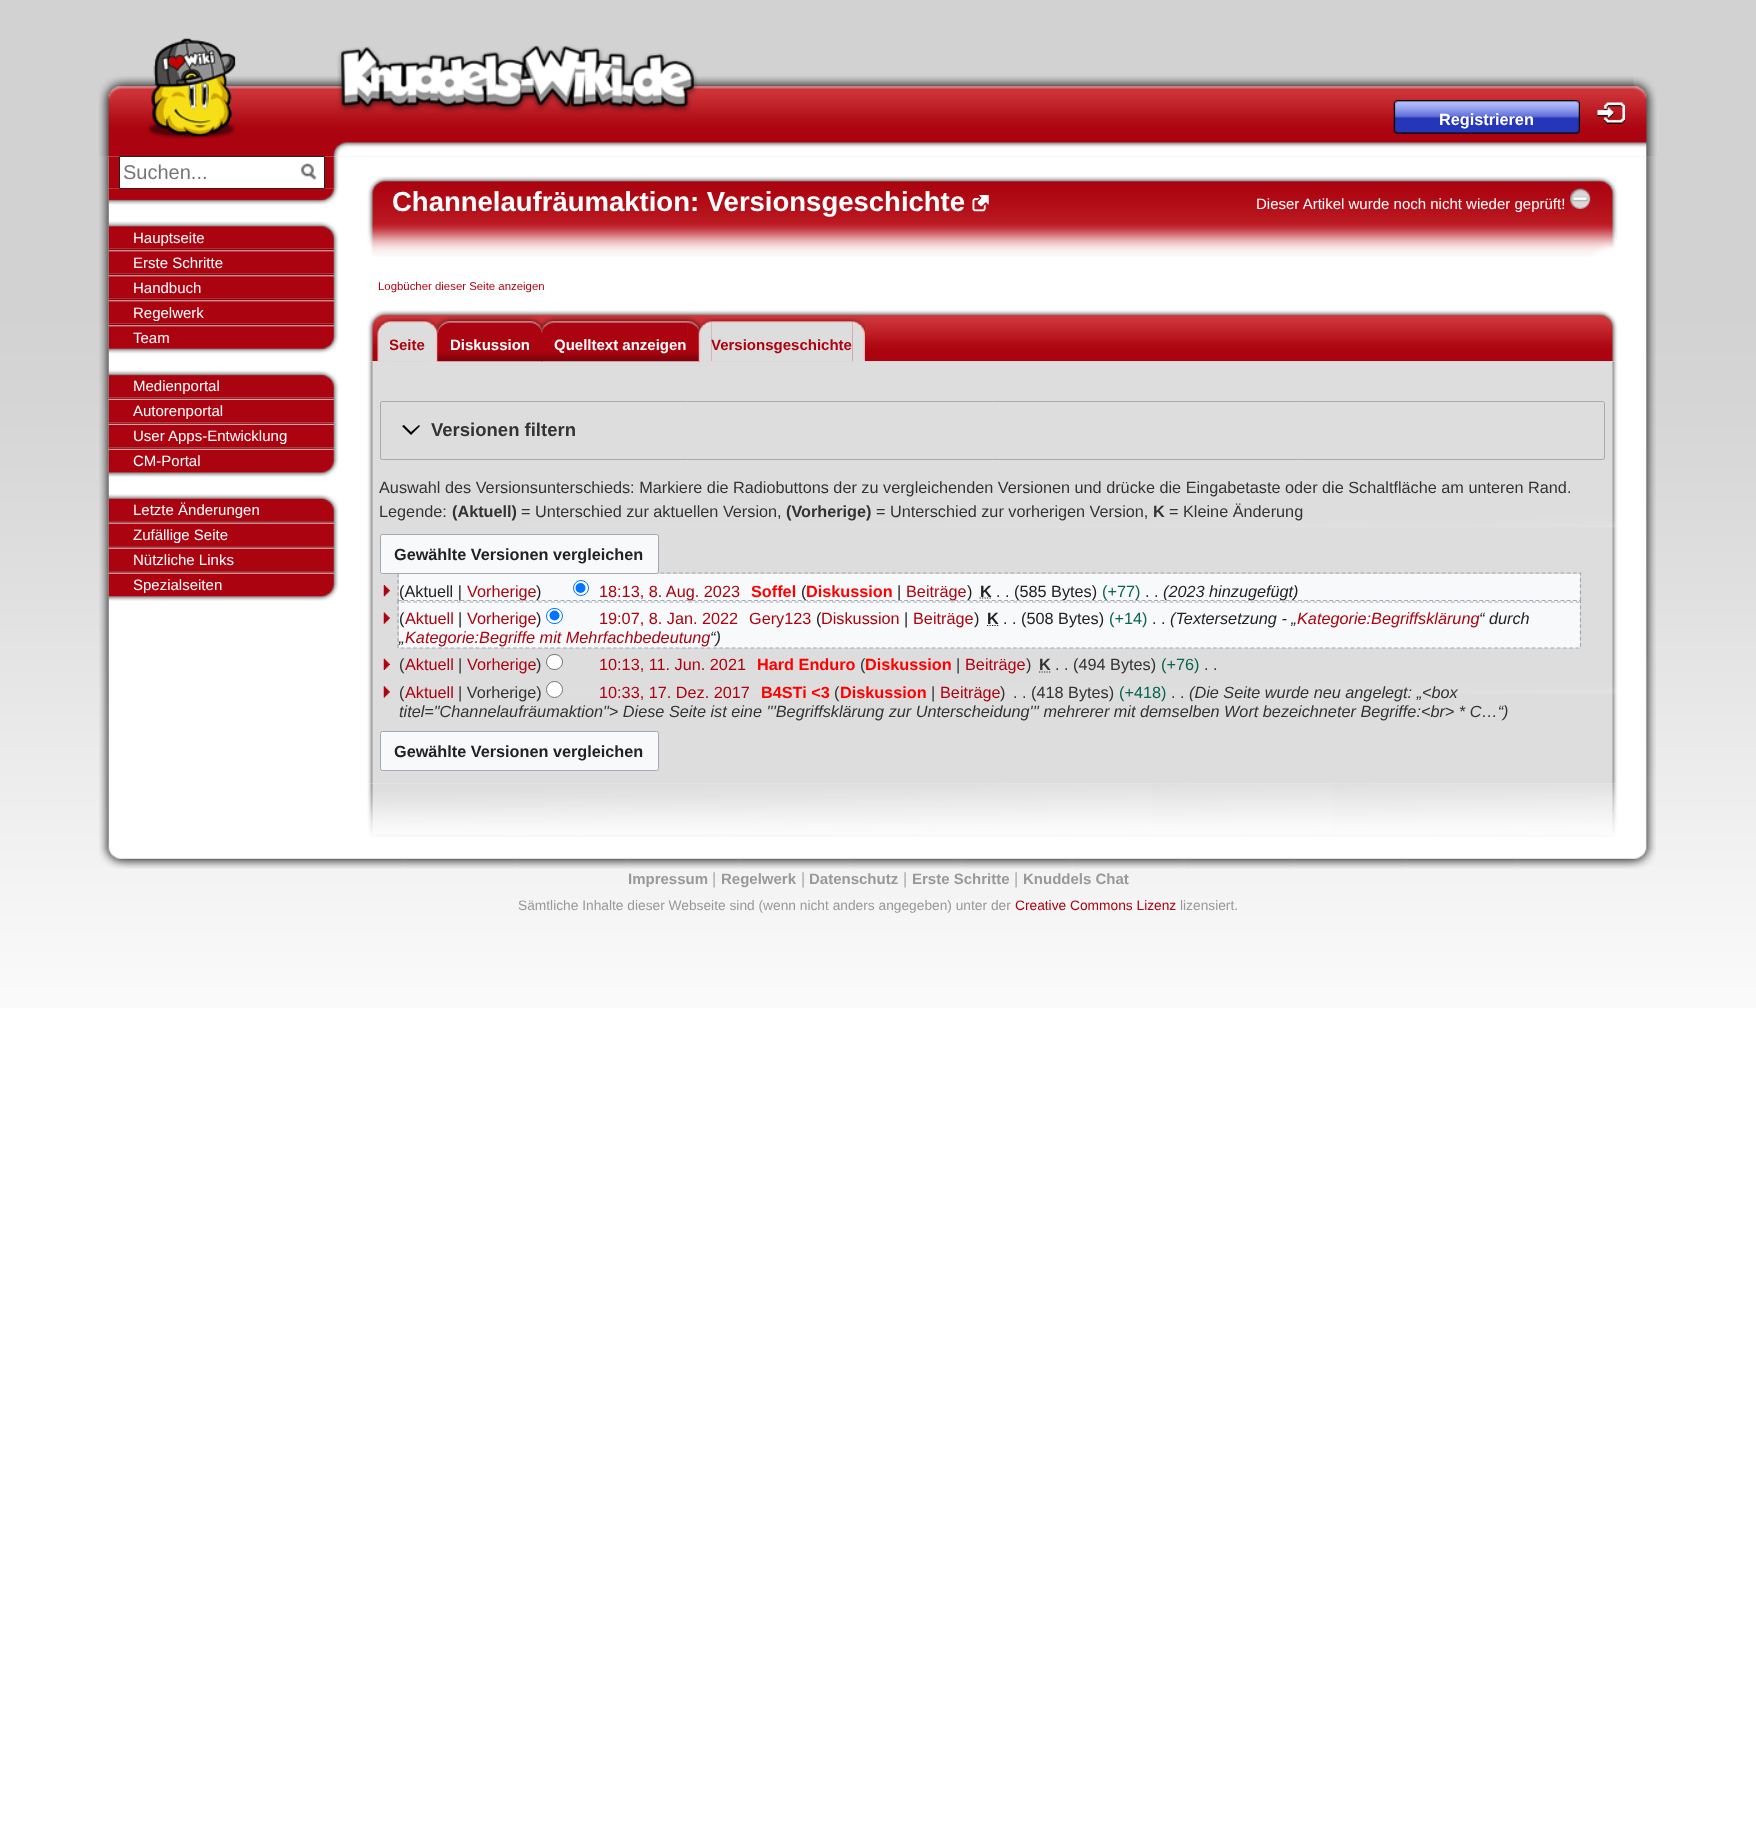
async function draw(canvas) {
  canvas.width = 1756;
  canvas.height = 1828;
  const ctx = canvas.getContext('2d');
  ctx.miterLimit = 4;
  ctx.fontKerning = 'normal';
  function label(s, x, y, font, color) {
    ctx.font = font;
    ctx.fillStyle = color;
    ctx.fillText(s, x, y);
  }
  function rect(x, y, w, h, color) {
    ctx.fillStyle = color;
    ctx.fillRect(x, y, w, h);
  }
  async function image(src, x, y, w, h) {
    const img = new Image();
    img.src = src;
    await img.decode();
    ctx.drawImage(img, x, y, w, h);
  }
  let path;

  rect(0, 0, 1756, 1828, '#fff');
  await image('assets/img1.png', 0, 0, 1756, 1008);
  await image('assets/img2.png', 98, 76, 1559, 81);
  await image('assets/img3.png', 147, 38, 89, 101);
  await image('assets/img4.png', 337, 45, 361, 68);
  await image('assets/img5.png', 1393, 100, 187, 34);
  label('Registrieren', 1439, 125, 'bold 16.25px Liberation Sans', '#fff');
  await image('assets/img6.png', 1597, 102, 28, 22);
  await image('assets/img7.png', 99, 156, 1557, 691);
  await image('assets/img8.png', 108, 156, 231, 33);
  ctx.beginPath();
  ctx.rect(119.5, 156.5, 205, 32);
  ctx.fill();
  ctx.strokeStyle = '#222';
  ctx.stroke();
  label('Suchen...', 123, 179, '20px Liberation Sans', '#757575');
  await image('assets/img9.png', 301, 163, 16, 17);
  await image('assets/img10.png', 108, 188, 230, 17);
  await image('assets/img11.png', 108, 221, 231, 28);
  label('Hauptseite', 133, 243, '15px Liberation Sans', '#fff');
  await image('assets/img12.png', 108, 248, 231, 4);
  await image('assets/img13.png', 108, 251, 231, 23);
  label('Erste Schritte', 133, 268, '15px Liberation Sans', '#fff');
  await image('assets/img12.png', 108, 273, 231, 4);
  await image('assets/img13.png', 108, 276, 231, 23);
  label('Handbuch', 133, 293, '15px Liberation Sans', '#fff');
  await image('assets/img12.png', 108, 298, 231, 4);
  await image('assets/img13.png', 108, 301, 231, 23);
  label('Regelwerk', 133, 318, '15px Liberation Sans', '#fff');
  await image('assets/img14.png', 108, 323, 231, 4);
  await image('assets/img15.png', 108, 326, 231, 28);
  label('Team', 133, 343, '15px Liberation Sans', '#fff');
  await image('assets/img16.png', 108, 370, 231, 28);
  label('Medienportal', 133, 391, '15px Liberation Sans', '#fff');
  await image('assets/img17.png', 108, 397, 231, 3);
  await image('assets/img18.png', 108, 400, 231, 23);
  label('Autorenportal', 133, 416, '15px Liberation Sans', '#fff');
  await image('assets/img19.png', 108, 422, 231, 3);
  await image('assets/img20.png', 108, 425, 231, 23);
  label('User Apps-Entwicklung', 133, 441, '15px Liberation Sans', '#fff');
  await image('assets/img21.png', 108, 447, 231, 3);
  await image('assets/img22.png', 108, 450, 231, 27);
  label('CM-Portal', 133, 466, '15px Liberation Sans', '#fff');
  await image('assets/img23.png', 108, 494, 231, 28);
  label('Letzte Änderungen', 133, 515, '15px Liberation Sans', '#fff');
  await image('assets/img24.png', 108, 521, 231, 3);
  await image('assets/img25.png', 108, 523, 231, 24);
  label('Zufällige Seite', 133, 540, '15px Liberation Sans', '#fff');
  await image('assets/img26.png', 108, 546, 231, 3);
  await image('assets/img27.png', 108, 548, 231, 24);
  label('Nützliche Links', 133, 565, '15px Liberation Sans', '#fff');
  await image('assets/img28.png', 108, 571, 231, 3);
  await image('assets/img29.png', 108, 573, 231, 28);
  label('Spezialseiten', 133, 590, '15px Liberation Sans', '#fff');
  await image('assets/img30.png', 367, 176, 1251, 81);
  label('Channelaufräumaktion: Versionsgeschichte', 392, 211, 'bold 27.5px Liberation Sans', '#fff');
  await image('assets/img31.png', 972, 195, 17, 17);
  label('Dieser Artikel wurde noch nicht wieder geprüft!', 1256, 209, '15px Liberation Sans', '#fff');
  await image('assets/img32.png', 1570, 188, 21, 21);
  label('Logbücher dieser Seite anzeigen', 378, 290, '11.4px Liberation Sans', '#ab030f');
  await image('assets/img33.png', 367, 310, 1251, 52);
  await image('assets/img34.png', 390, 318, 35, 43);
  label('Seite', 389, 350, 'bold 15px Liberation Sans', '#ab030f');
  await image('assets/img46.png', 367, 361, 1251, 423);
  await image('assets/img35.png', 377, 318, 13, 44);
  await image('assets/img36.png', 425, 318, 13, 44);
  await image('assets/img37.png', 450, 316, 80, 46);
  await image('assets/img38.png', 437, 316, 13, 46);
  label('Diskussion', 450, 350, 'bold 15px Liberation Sans', '#fff');
  await image('assets/img39.png', 530, 316, 13, 46);
  await image('assets/img40.png', 553, 316, 135, 46);
  await image('assets/img41.png', 541, 317, 13, 45);
  label('Quelltext anzeigen', 554, 350, 'bold 15px Liberation Sans', '#fff');
  await image('assets/img42.png', 687, 317, 13, 45);
  await image('assets/img43.png', 711, 318, 142, 43);
  label('Versionsgeschichte', 711, 350, 'bold 15px Liberation Sans', '#ab030f');
  await image('assets/img44.png', 698, 318, 14, 44);
  await image('assets/img45.png', 852, 318, 13, 44);
  ctx.beginPath();
  ctx.roundRect(380.5, 401.5, 1224, 58, 2);
  ctx.strokeStyle = '#a2a9b1';
  ctx.stroke();
  ctx.fillStyle = '#000';
  path = new Path2D('M419 425L411 432L404 425L402 426L411 435L420 426Z');
  ctx.fill(path);
  label('Versionen filtern', 431, 436, 'bold 18.5px Liberation Sans', '#333');
  label('Auswahl des Versionsunterschieds: Markiere die Radiobuttons der zu vergleichenden Versionen und drücke die Eingabetaste oder die Schaltfläche am unteren Rand.', 379, 493, '16.25px Liberation Sans', '#333');
  label('Legende:', 379, 517, '16.25px Liberation Sans', '#333');
  label('(Aktuell)', 452, 517, 'bold 16.25px Liberation Sans', '#333');
  label('= Unterschied zur aktuellen Version,', 521, 517, '16.25px Liberation Sans', '#333');
  label('(Vorherige)', 786, 517, 'bold 16.25px Liberation Sans', '#333');
  label('= Unterschied zur vorherigen Version,', 876, 517, '16.25px Liberation Sans', '#333');
  label('K', 1153, 517, 'bold 16.25px Liberation Sans', '#333');
  label('= Kleine Änderung', 1169, 517, '16.25px Liberation Sans', '#333');
  rect(399, 574, 1181, 74, '#f8f9fa');
  label('(Aktuell |', 399, 597, '16.25px Liberation Sans', '#222');
  label('Vorherige', 467, 597, '16.25px Liberation Sans', '#ab030f');
  label(')', 536, 597, '16.25px Liberation Sans', '#222');
  ctx.fillStyle = '#fff';
  ctx.beginPath();
  ctx.arc(581, 588, 7.5, 0, 2 * Math.PI);
  ctx.fill();
  ctx.strokeStyle = '#0075ff';
  ctx.stroke();
  ctx.fillStyle = '#0075ff';
  ctx.beginPath();
  ctx.arc(580.5, 588, 5, 0, 2 * Math.PI);
  ctx.fill();
  label('18:13, 8. Aug. 2023', 599, 597, '16.25px Liberation Sans', '#ab030f');
  label('Soffel', 751, 597, 'bold 16.25px Liberation Sans', '#f00');
  label('(', 801, 597, '16.25px Liberation Sans', '#222');
  label('Diskussion', 806, 597, 'bold 16.25px Liberation Sans', '#f00');
  label('|', 897, 597, '16.25px Liberation Sans', '#222');
  label('Beiträge', 906, 597, '16.25px Liberation Sans', '#ab030f');
  label(')', 967, 597, '16.25px Liberation Sans', '#222');
  label('K', 980, 597, 'bold 16.25px Liberation Sans', '#222');
  path = new Path2D('M979.5 598H991.5');
  ctx.strokeStyle = '#222';
  ctx.lineWidth = 1.2;
  ctx.setLineDash([1.25, 1.25]);
  ctx.stroke(path);
  label('. . (585 Bytes)', 996, 597, '16.25px Liberation Sans', '#222');
  label('(+77)', 1102, 597, '16.25px Liberation Sans', '#096450');
  label('. .', 1145, 597, '16.25px Liberation Sans', '#222');
  label('(2023 hinzugefügt)', 1163, 597, 'italic 16.25px Liberation Sans', '#222');
  path = new Path2D('M398 573H1580.5V602H398Z');
  ctx.strokeStyle = '#a2a9b1';
  ctx.setLineDash([3.75, 2.5]);
  ctx.stroke(path);
  ctx.fillStyle = '#f8f9fa';
  ctx.beginPath();
  ctx.roundRect(380.5, 534.5, 278, 39, 2);
  ctx.fill();
  ctx.lineWidth = 1;
  ctx.setLineDash([]);
  ctx.stroke();
  label('Gewählte Versionen vergleichen', 394, 560, 'bold 16.25px Liberation Sans', '#222');
  await image('assets/img47.png', 383, 585, 7, 12);
  await image('assets/img48.png', 383, 612, 7, 12);
  label('(', 399, 624, '16.25px Liberation Sans', '#222');
  label('Aktuell', 405, 624, '16.25px Liberation Sans', '#ab030f');
  label('|', 458, 624, '16.25px Liberation Sans', '#222');
  label('Vorherige', 467, 624, '16.25px Liberation Sans', '#ab030f');
  label(')', 536, 624, '16.25px Liberation Sans', '#222');
  ctx.fillStyle = '#fff';
  ctx.beginPath();
  ctx.roundRect(546.5, 608.5, 16, 15, 7.5);
  ctx.fill();
  ctx.strokeStyle = '#0075ff';
  ctx.stroke();
  ctx.fillStyle = '#0075ff';
  ctx.beginPath();
  ctx.arc(554.5, 615.5, 5, 0, 2 * Math.PI);
  ctx.fill();
  label('19:07, 8. Jan. 2022', 599, 624, '16.25px Liberation Sans', '#ab030f');
  label('Gery123', 749, 624, '16.25px Liberation Sans', '#ab030f');
  label('(', 816, 624, '16.25px Liberation Sans', '#222');
  label('Diskussion', 821, 624, '16.25px Liberation Sans', '#ab030f');
  label('|', 904, 624, '16.25px Liberation Sans', '#222');
  label('Beiträge', 913, 624, '16.25px Liberation Sans', '#ab030f');
  label(')', 974, 624, '16.25px Liberation Sans', '#222');
  label('K', 987, 624, 'bold 16.25px Liberation Sans', '#222');
  path = new Path2D('M987 625.5H998.5');
  ctx.strokeStyle = '#222';
  ctx.lineWidth = 1.2;
  ctx.setLineDash([1.25, 1.25]);
  ctx.stroke(path);
  label('. . (508 Bytes)', 1003, 624, '16.25px Liberation Sans', '#222');
  label('(+14)', 1109, 624, '16.25px Liberation Sans', '#096450');
  label('. .', 1152, 624, '16.25px Liberation Sans', '#222');
  label('(Textersetzung - „', 1170, 624, 'italic 16.25px Liberation Sans', '#222');
  label('Kategorie:Begriffsklärung', 1297, 624, 'italic 16.25px Liberation Sans', '#ab030f');
  label('“ durch', 1479, 624, 'italic 16.25px Liberation Sans', '#222');
  label('„', 399, 643, 'italic 16.25px Liberation Sans', '#222');
  label('Kategorie:Begriffe mit Mehrfachbedeutung', 405, 643, 'italic 16.25px Liberation Sans', '#ab030f');
  label('“)', 710, 643, 'italic 16.25px Liberation Sans', '#222');
  path = new Path2D('M398 600.5H1580.5V648H398Z');
  ctx.strokeStyle = '#a2a9b1';
  ctx.setLineDash([3.75, 2.5]);
  ctx.stroke(path);
  await image('assets/img49.png', 383, 658, 7, 12);
  label('(', 399, 670, '16.25px Liberation Sans', '#333');
  label('Aktuell', 405, 670, '16.25px Liberation Sans', '#ab030f');
  label('|', 458, 670, '16.25px Liberation Sans', '#333');
  label('Vorherige', 467, 670, '16.25px Liberation Sans', '#ab030f');
  label(')', 536, 670, '16.25px Liberation Sans', '#333');
  ctx.fillStyle = '#fff';
  ctx.beginPath();
  ctx.roundRect(546.5, 654.5, 16, 15, 7.5);
  ctx.fill();
  ctx.strokeStyle = '#767676';
  ctx.lineWidth = 1;
  ctx.setLineDash([]);
  ctx.stroke();
  label('10:13, 11. Jun. 2021', 599, 670, '16.25px Liberation Sans', '#ab030f');
  label('Hard Enduro', 757, 670, 'bold 16.25px Liberation Sans', '#f00');
  label('(', 860, 670, '16.25px Liberation Sans', '#333');
  label('Diskussion', 865, 670, 'bold 16.25px Liberation Sans', '#f00');
  label('|', 956, 670, '16.25px Liberation Sans', '#333');
  label('Beiträge', 965, 670, '16.25px Liberation Sans', '#ab030f');
  label(')', 1026, 670, '16.25px Liberation Sans', '#333');
  label('K', 1039, 670, 'bold 16.25px Liberation Sans', '#333');
  path = new Path2D('M1039 672H1050.5');
  ctx.strokeStyle = '#333';
  ctx.lineWidth = 1.2;
  ctx.setLineDash([1.25, 1.25]);
  ctx.stroke(path);
  label('. . (494 Bytes)', 1055, 670, '16.25px Liberation Sans', '#333');
  label('(+76)', 1161, 670, '16.25px Liberation Sans', '#096450');
  label('. .', 1204, 670, '16.25px Liberation Sans', '#333');
  await image('assets/img50.png', 383, 686, 7, 12);
  label('(', 399, 698, '16.25px Liberation Sans', '#333');
  label('Aktuell', 405, 698, '16.25px Liberation Sans', '#ab030f');
  label('| Vorherige)', 458, 698, '16.25px Liberation Sans', '#333');
  ctx.fillStyle = '#fff';
  ctx.beginPath();
  ctx.arc(554.5, 689.5, 8, 0, 2 * Math.PI);
  ctx.fill();
  ctx.strokeStyle = '#767676';
  ctx.lineWidth = 1;
  ctx.setLineDash([]);
  ctx.stroke();
  label('10:33, 17. Dez. 2017', 599, 698, '16.25px Liberation Sans', '#ab030f');
  label('B4STi <3', 761, 698, 'bold 16.25px Liberation Sans', '#f00');
  label('(', 834, 698, '16.25px Liberation Sans', '#333');
  label('Diskussion', 840, 698, 'bold 16.25px Liberation Sans', '#f00');
  label('|', 931, 698, '16.25px Liberation Sans', '#333');
  label('Beiträge', 940, 698, '16.25px Liberation Sans', '#ab030f');
  label(')', 1000, 698, '16.25px Liberation Sans', '#333');
  label('. . (418 Bytes)', 1013, 698, '16.25px Liberation Sans', '#333');
  label('(+418)', 1119, 698, '16.25px Liberation Sans', '#096450');
  label('. .', 1171, 698, '16.25px Liberation Sans', '#333');
  label('(Die Seite wurde neu angelegt: „<box', 1189, 698, 'italic 16.25px Liberation Sans', '#333');
  label('titel="Channelaufräumaktion"> Diese Seite ist eine \'\'\'Begriffsklärung zur Unterscheidung\'\'\' mehrerer mit demselben Wort bezeichneter Begriffe:<br> * C…“)', 399, 717, 'italic 16.25px Liberation Sans', '#333');
  ctx.fillStyle = '#f8f9fa';
  ctx.beginPath();
  ctx.roundRect(380.5, 731.5, 278, 39, 2);
  ctx.fill();
  ctx.strokeStyle = '#a2a9b1';
  ctx.stroke();
  label('Gewählte Versionen vergleichen', 394, 757, 'bold 16.25px Liberation Sans', '#222');
  await image('assets/img51.png', 367, 783, 1251, 54);
  await image('assets/img52.png', 99, 846, 1557, 23);
  label('Impressum', 628, 884, 'bold 15px Liberation Sans', '#999');
  label('|', 712, 884, '16.25px Liberation Sans', '#aaa');
  label('Regelwerk', 721, 884, 'bold 15px Liberation Sans', '#999');
  label('|', 801, 884, '16.25px Liberation Sans', '#aaa');
  label('Datenschutz', 809, 884, 'bold 15px Liberation Sans', '#999');
  label('|', 903, 884, '16.25px Liberation Sans', '#aaa');
  label('Erste Schritte', 912, 884, 'bold 15px Liberation Sans', '#999');
  label('|', 1014, 884, '16.25px Liberation Sans', '#aaa');
  label('Knuddels Chat', 1023, 884, 'bold 15px Liberation Sans', '#999');
  label('Sämtliche Inhalte dieser Webseite sind (wenn nicht anders angegeben) unter der', 518, 910, '13.75px Liberation Sans', '#999');
  label('Creative Commons Lizenz', 1015, 910, '13.75px Liberation Sans', '#ab030f');
  label('lizensiert.', 1180, 910, '13.75px Liberation Sans', '#999');
}

draw(document.querySelector('canvas'));
